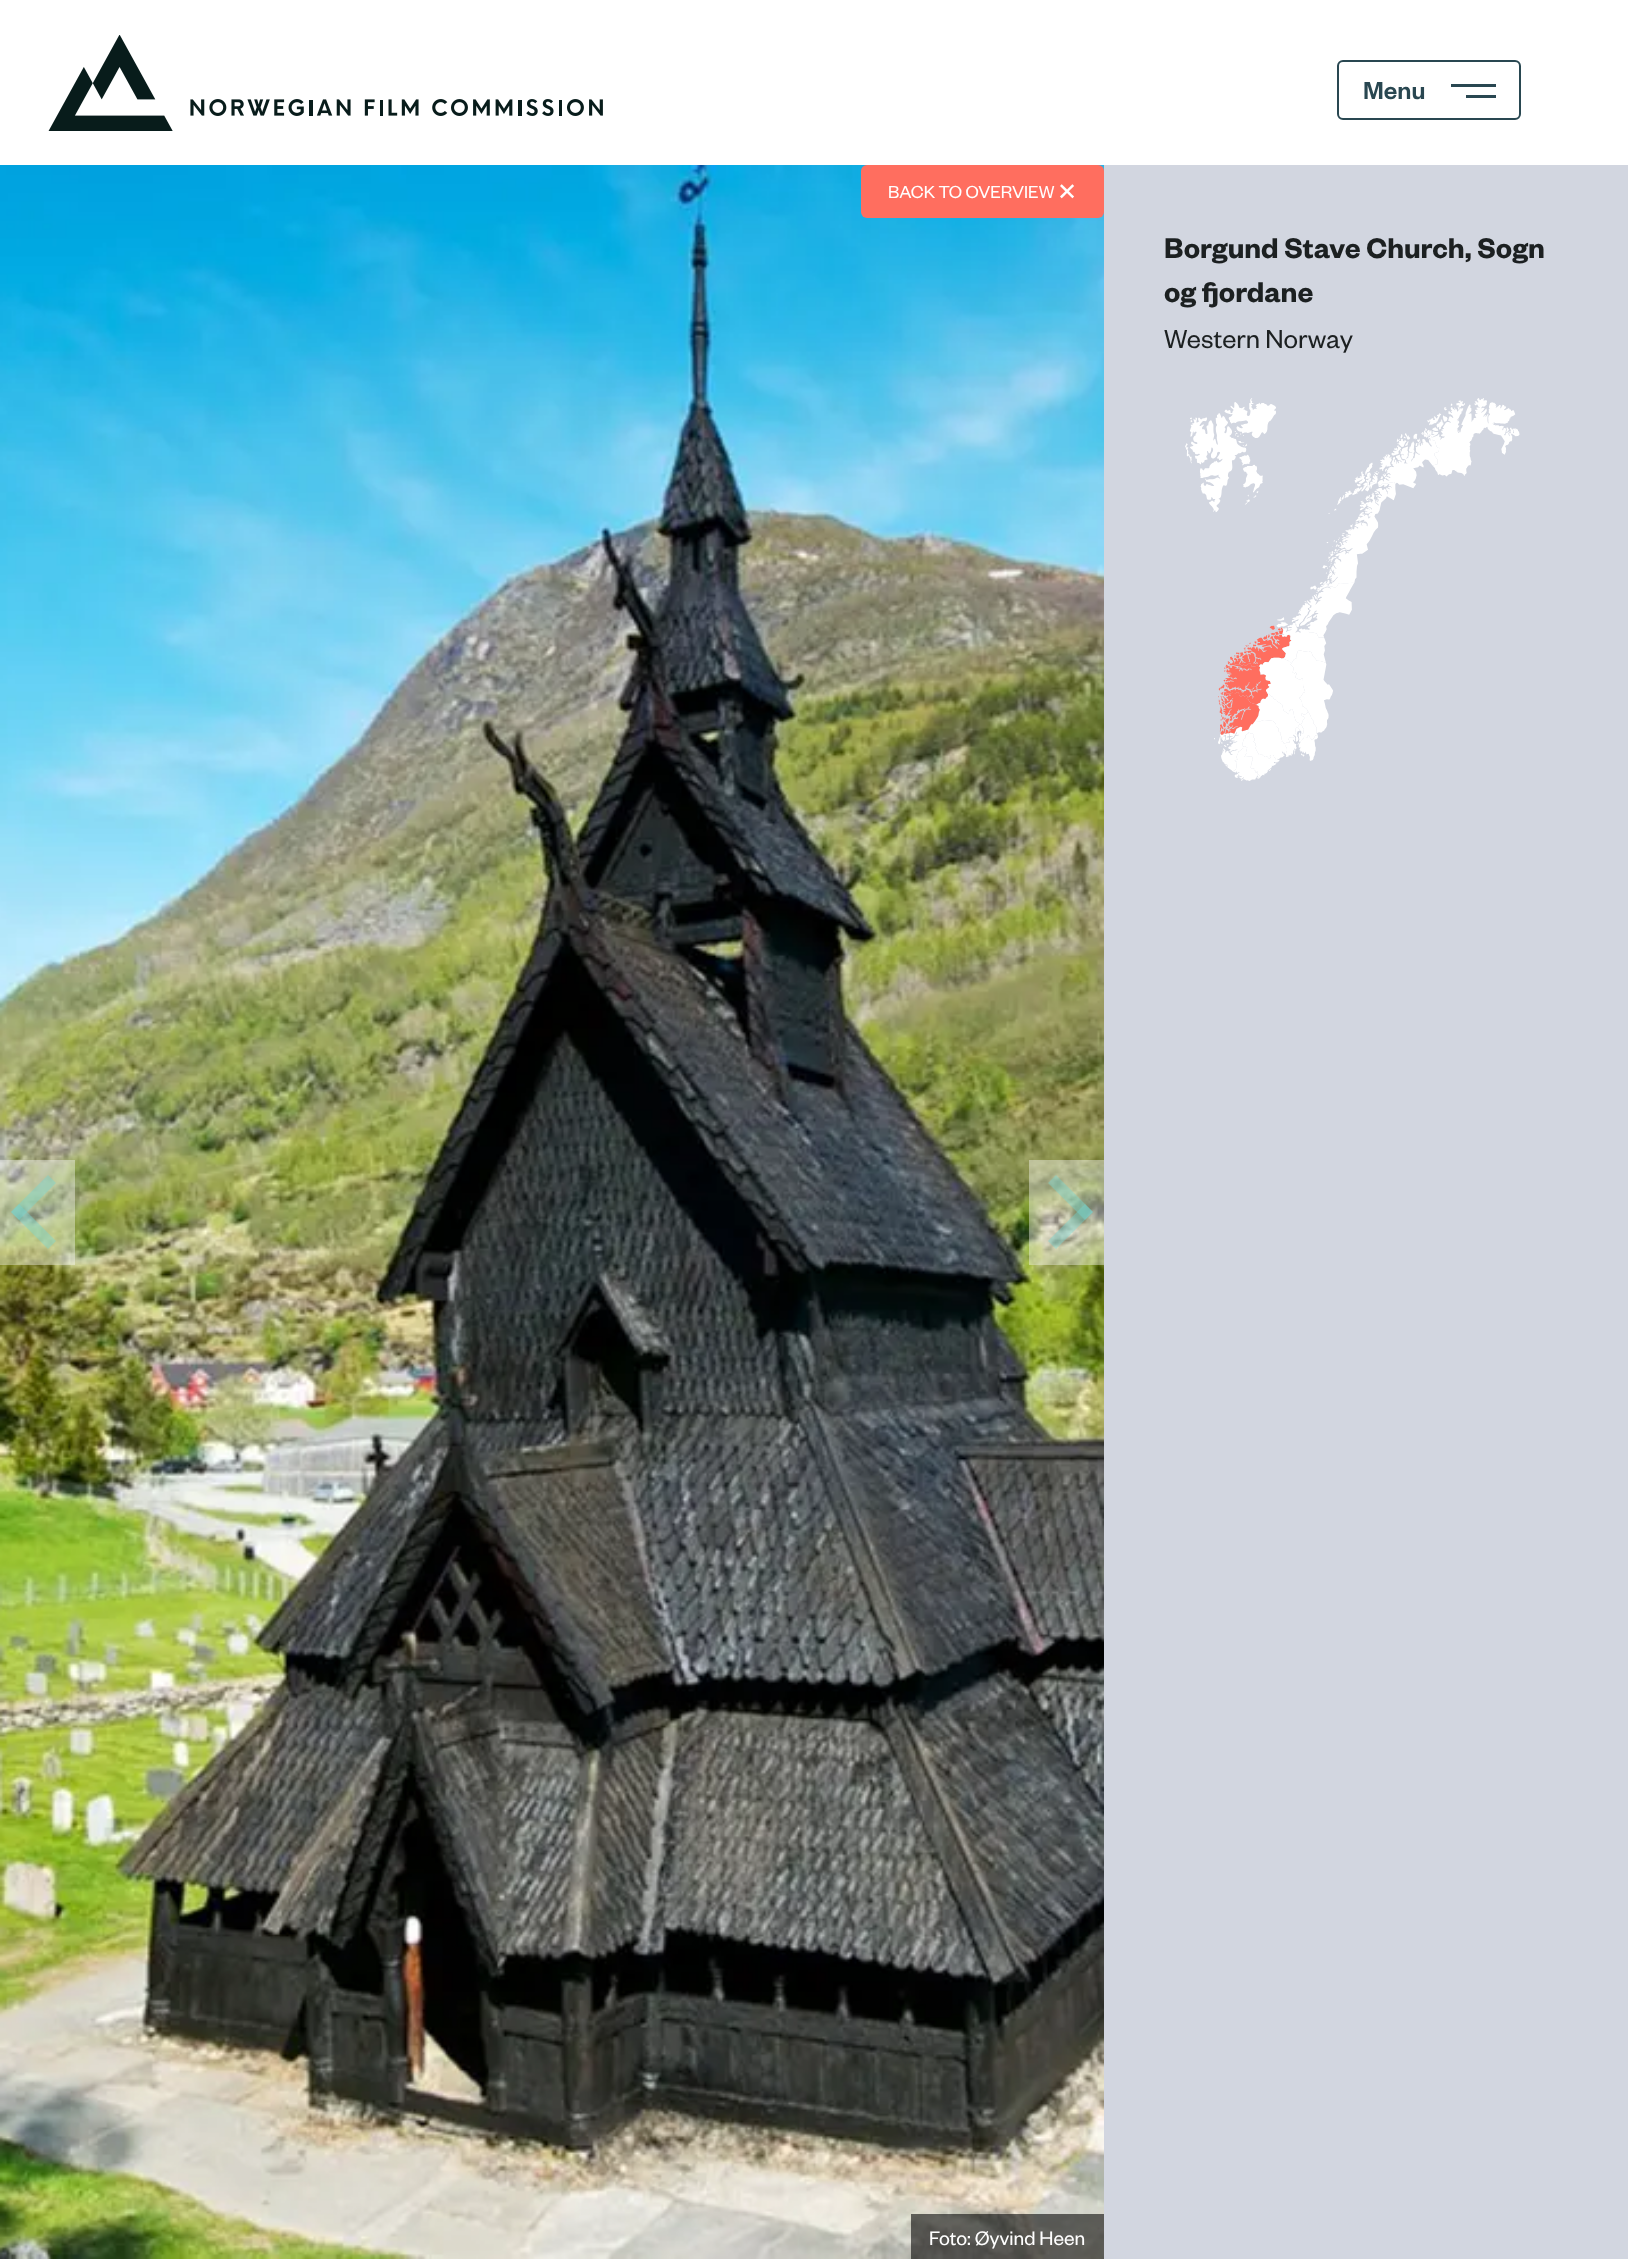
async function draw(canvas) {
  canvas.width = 1628;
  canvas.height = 2259;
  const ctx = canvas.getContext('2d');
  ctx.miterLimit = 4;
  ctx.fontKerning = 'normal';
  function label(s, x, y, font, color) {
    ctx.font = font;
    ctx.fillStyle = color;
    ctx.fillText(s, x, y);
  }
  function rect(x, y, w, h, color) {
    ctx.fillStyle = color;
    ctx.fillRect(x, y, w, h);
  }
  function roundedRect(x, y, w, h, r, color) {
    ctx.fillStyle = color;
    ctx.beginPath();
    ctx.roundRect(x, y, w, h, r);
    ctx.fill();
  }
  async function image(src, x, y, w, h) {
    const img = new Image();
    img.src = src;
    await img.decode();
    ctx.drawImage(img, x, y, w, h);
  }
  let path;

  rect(0, 0, 1628, 2259, '#fff');
  await image('assets/img1.png', 48, 35, 555, 96);
  ctx.beginPath();
  ctx.roundRect(1338, 61, 182, 58, 5);
  ctx.strokeStyle = '#294751';
  ctx.lineWidth = 2;
  ctx.stroke();
  label('Menu', 1363, 99, '500 27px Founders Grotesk', '#294751');
  rect(1451, 84, 45, 3, '#294751');
  rect(1466, 95, 30, 3, '#294751');
  await image('assets/img2.png', 0, 165, 1104, 2094);
  roundedRect(861, 165, 243, 53, 6, '#ff6e5f');
  label('BACK TO OVERVIEW', 888, 198, '19.25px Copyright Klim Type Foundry', '#fff');
  label('✕', 1057, 200, '24px DejaVu Sans', '#fff');
  rect(0, 1160, 75, 105, '#ffffff66');
  ctx.fillStyle = '#73d8d566';
  path = new Path2D('M11 1212L48 1175L56 1183L19 1220Z');
  ctx.fill(path);
  path = new Path2D('M11 1212L19 1204L56 1241L48 1249Z');
  ctx.fill(path);
  rect(1029, 1160, 75, 105, '#ffffff66');
  ctx.fillStyle = '#73d8d566';
  path = new Path2D('M1093 1212L1056 1249L1048 1241L1085 1204Z');
  ctx.fill(path);
  path = new Path2D('M1093 1212L1085 1220L1048 1183L1056 1175Z');
  ctx.fill(path);
  rect(911, 2214, 193, 45, '#0a0a0a99');
  label('Foto: Øyvind Heen', 929, 2245, '21.5px Copyright Klim Type Foundry', '#fff');
  rect(1104, 165, 524, 2094, '#d2d6e0');
  label('Borgund Stave Church, Sogn', 1164, 258, '600 31.25px Founders Grotesk', '#1c2021');
  label('og fjordane', 1164, 302, '600 31.25px Founders Grotesk', '#1c2021');
  label('Western Norway', 1164, 348, '28.75px Copyright Klim Type Foundry', '#1c2021');
  await image('assets/img3.png', 1185, 398, 335, 383);
}

draw(document.querySelector('canvas'));
